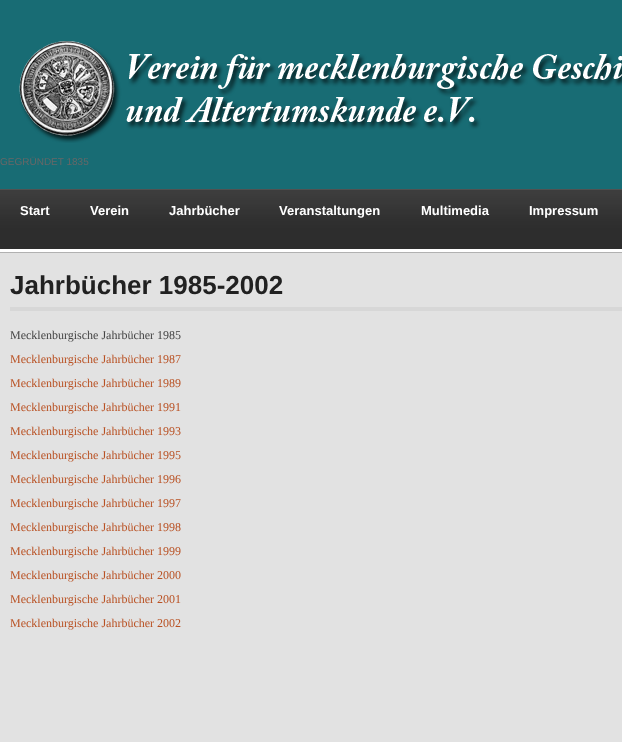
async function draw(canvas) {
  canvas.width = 622;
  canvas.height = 742;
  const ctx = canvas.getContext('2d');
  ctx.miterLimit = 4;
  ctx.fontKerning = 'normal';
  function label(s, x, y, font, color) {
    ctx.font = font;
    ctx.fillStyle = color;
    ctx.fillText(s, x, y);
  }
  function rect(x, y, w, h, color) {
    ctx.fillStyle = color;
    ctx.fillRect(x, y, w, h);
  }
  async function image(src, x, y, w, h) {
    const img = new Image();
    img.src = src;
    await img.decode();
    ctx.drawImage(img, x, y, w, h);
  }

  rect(0, 0, 622, 742, '#fff');
  await image('assets/img1.png', 0, 253, 480, 489);
  rect(0, 0, 622, 189, '#186c74');
  rect(0, 252, 622, 1, '#b1b1b1');
  await image('assets/img2.png', 19, 41, 603, 102);
  label('GEGRÜNDET 1835', 0, 165, '10px Liberation Sans', '#676767');
  await image('assets/img3.png', 0, 190, 622, 59);
  rect(0, 189, 622, 1, '#515151');
  label('Start', 20, 215, 'bold 13px Liberation Sans', '#fff');
  label('Verein', 90, 215, 'bold 13px Liberation Sans', '#fff');
  label('Jahrbücher', 169, 215, 'bold 13px Liberation Sans', '#fff');
  label('Veranstaltungen', 279, 215, 'bold 13px Liberation Sans', '#fff');
  label('Multimedia', 421, 215, 'bold 13px Liberation Sans', '#fff');
  label('Impressum', 529, 215, 'bold 13px Liberation Sans', '#fff');
  rect(480, 253, 142, 489, '#e2e2e2');
  rect(10, 307, 612, 4, '#d7d7d7');
  label('Jahrbücher 1985-2002', 10, 294, 'bold 26px Liberation Sans', '#212121');
  label('Mecklenburgische Jahrbücher 1985', 10, 339, '12px Liberation Serif', '#444');
  label('Mecklenburgische Jahrbücher 1987', 10, 363, '12px Liberation Serif', '#b95123');
  label('Mecklenburgische Jahrbücher 1989', 10, 387, '12px Liberation Serif', '#b95123');
  label('Mecklenburgische Jahrbücher 1991', 10, 411, '12px Liberation Serif', '#b95123');
  label('Mecklenburgische Jahrbücher 1993', 10, 435, '12px Liberation Serif', '#b95123');
  label('Mecklenburgische Jahrbücher 1995', 10, 459, '12px Liberation Serif', '#b95123');
  label('Mecklenburgische Jahrbücher 1996', 10, 483, '12px Liberation Serif', '#b95123');
  label('Mecklenburgische Jahrbücher 1997', 10, 507, '12px Liberation Serif', '#b95123');
  label('Mecklenburgische Jahrbücher 1998', 10, 531, '12px Liberation Serif', '#b95123');
  label('Mecklenburgische Jahrbücher 1999', 10, 555, '12px Liberation Serif', '#b95123');
  label('Mecklenburgische Jahrbücher 2000', 10, 579, '12px Liberation Serif', '#b95123');
  label('Mecklenburgische Jahrbücher 2001', 10, 603, '12px Liberation Serif', '#b95123');
  label('Mecklenburgische Jahrbücher 2002', 10, 627, '12px Liberation Serif', '#b95123');
}

draw(document.querySelector('canvas'));
